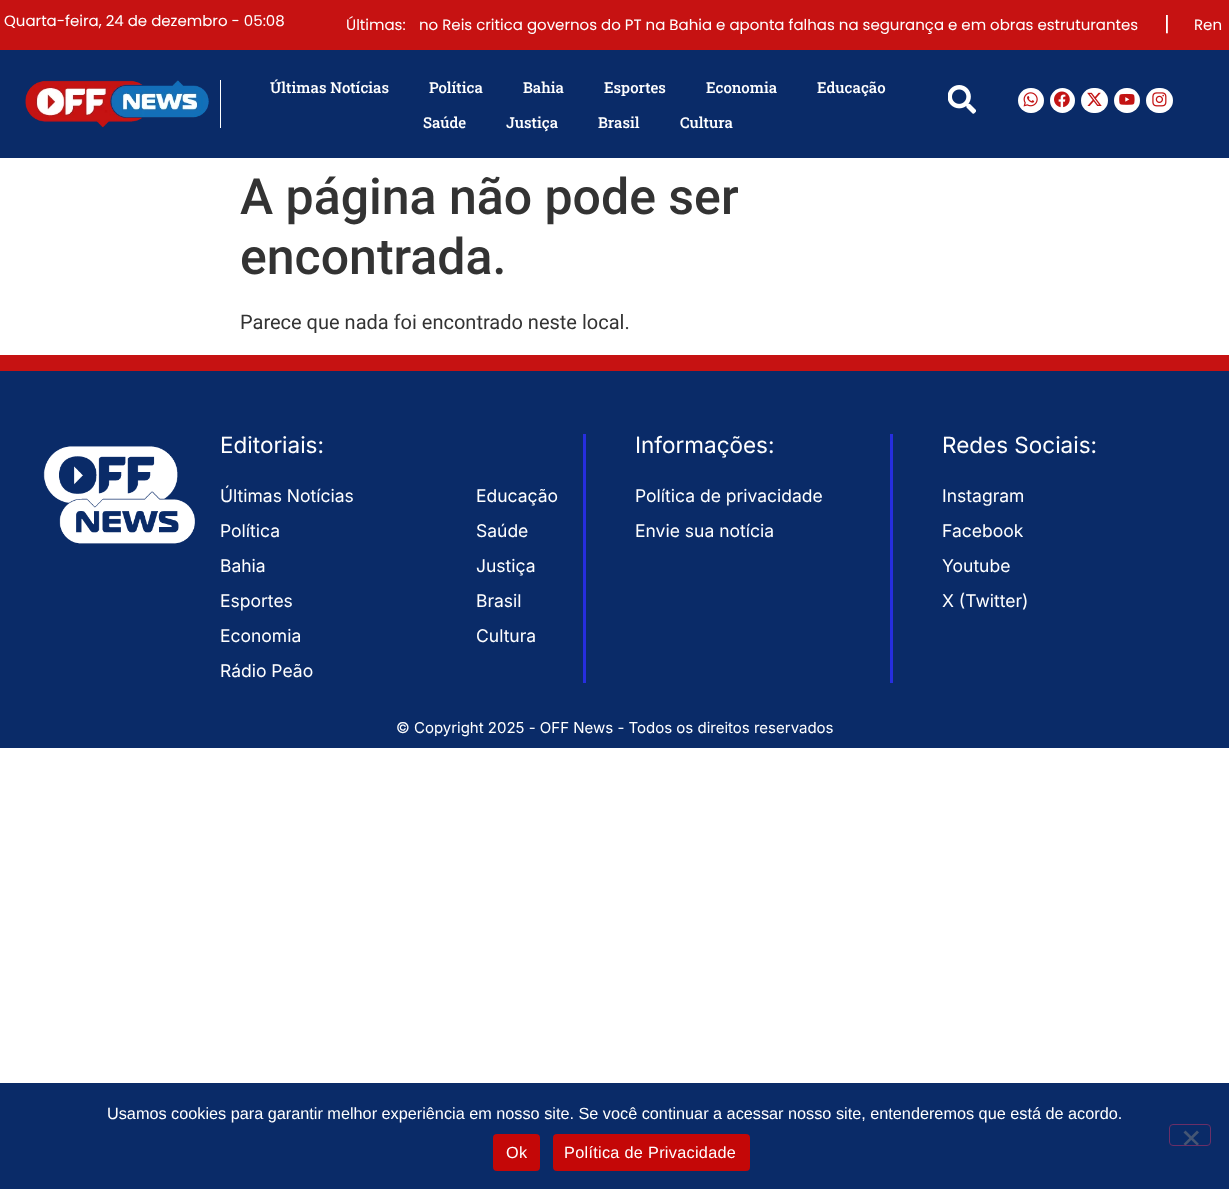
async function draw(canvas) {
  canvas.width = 1229;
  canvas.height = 1189;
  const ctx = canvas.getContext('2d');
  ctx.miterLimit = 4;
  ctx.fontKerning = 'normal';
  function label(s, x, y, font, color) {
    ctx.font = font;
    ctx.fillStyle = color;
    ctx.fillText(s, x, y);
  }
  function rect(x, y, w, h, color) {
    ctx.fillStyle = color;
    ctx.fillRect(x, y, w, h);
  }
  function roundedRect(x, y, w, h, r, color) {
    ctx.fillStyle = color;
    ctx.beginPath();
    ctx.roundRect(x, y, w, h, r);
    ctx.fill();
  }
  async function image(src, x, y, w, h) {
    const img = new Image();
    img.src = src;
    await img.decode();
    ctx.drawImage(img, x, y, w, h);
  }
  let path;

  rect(0, 0, 1229, 1189, '#fff');
  rect(0, 0, 1229, 50, '#c61212');
  label('Quarta-feira, 24 de dezembro - 05:08', 4, 26, '15px Poppins', '#fff');
  label('Últimas:', 346, 30, '15px Poppins', '#fff');
  label('no Reis critica governos do PT na Bahia e aponta falhas na segurança e em obras estruturantes', 419, 30, '15px Poppins', '#fff');
  label('|', 1164, 31, '20px Poppins', '#fff');
  label('Ren', 1194, 30, '15px Poppins', '#fff');
  rect(0, 50, 1229, 108, '#0a2b68');
  rect(220, 80, 1, 48, '#fff');
  await image('assets/img1.png', 25, 80, 184, 48);
  label('Últimas Notícias', 270, 93, '500 15px Roboto Slab', '#fff');
  label('Política', 429, 93, '500 15px Roboto Slab', '#fff');
  label('Bahia', 523, 93, '500 15px Roboto Slab', '#fff');
  label('Esportes', 604, 93, '500 15px Roboto Slab', '#fff');
  label('Economia', 706, 93, '500 15px Roboto Slab', '#fff');
  label('Educação', 817, 93, '500 15px Roboto Slab', '#fff');
  label('Saúde', 423, 128, '500 15px Roboto Slab', '#fff');
  label('Justiça', 506, 128, '500 15px Roboto Slab', '#fff');
  label('Brasil', 598, 128, '500 15px Roboto Slab', '#fff');
  label('Cultura', 680, 128, '500 15px Roboto Slab', '#fff');
  await image('assets/img2.png', 948, 85, 28, 29);
  roundedRect(1018, 88, 26, 25, 12.5, '#fff');
  await image('assets/img3.png', 1023, 92, 15, 15);
  ctx.beginPath();
  ctx.arc(1062.5, 100.5, 12.5, 0, 2 * Math.PI);
  ctx.fill();
  await image('assets/img4.png', 1054, 91, 16, 17);
  roundedRect(1081, 88, 27, 25, 12.5, '#fff');
  await image('assets/img5.png', 1087, 92, 15, 14);
  roundedRect(1114, 88, 26, 25, 12.5, '#fff');
  await image('assets/img6.png', 1119, 93, 16, 12);
  roundedRect(1146, 88, 27, 25, 12.5, '#fff');
  await image('assets/img7.png', 1152, 92, 15, 15);
  label('A página não pode ser', 240, 214, '500 50px Roboto', '#333');
  label('encontrada.', 240, 274, '500 50px Roboto', '#333');
  label('Parece que nada foi encontrado neste local.', 240, 329, '20px Roboto', '#333');
  rect(0, 371, 1229, 377, '#0a2b68');
  rect(0, 355, 1229, 16, '#c61212');
  await image('assets/img8.png', 43, 446, 152, 98);
  rect(583, 434, 3, 249, '#262ee0');
  label('Editoriais:', 220, 453, '22.5px Inter', '#fff');
  label('Últimas Notícias', 220, 502, '17.5px Inter', '#fff');
  label('Política', 220, 537, '17.5px Inter', '#fff');
  label('Bahia', 220, 572, '17.5px Inter', '#fff');
  label('Esportes', 220, 607, '17.5px Inter', '#fff');
  label('Economia', 220, 642, '17.5px Inter', '#fff');
  label('Rádio Peão', 220, 677, '17.5px Inter', '#fff');
  label('Educação', 476, 502, '17.5px Inter', '#fff');
  label('Saúde', 476, 537, '17.5px Inter', '#fff');
  label('Justiça', 476, 572, '17.5px Inter', '#fff');
  label('Brasil', 476, 607, '17.5px Inter', '#fff');
  label('Cultura', 476, 642, '17.5px Inter', '#fff');
  rect(890, 434, 3, 249, '#262ee0');
  label('Informações:', 635, 453, '22.5px Inter', '#fff');
  label('Política de privacidade', 635, 502, '17.5px Inter', '#fff');
  label('Envie sua notícia', 635, 537, '17.5px Inter', '#fff');
  label('Redes Sociais:', 942, 453, '22.5px Inter', '#fff');
  label('Instagram', 942, 502, '17.5px Inter', '#fff');
  label('Facebook', 942, 537, '17.5px Inter', '#fff');
  label('Youtube', 942, 572, '17.5px Inter', '#fff');
  label('X (Twitter)', 942, 607, '17.5px Inter', '#fff');
  label('© Copyright 2025 - OFF News - Todos os direitos reservados', 396, 733, '15px Inter', '#fff');
  rect(0, 1083, 1229, 106, '#0a2b68');
  label('Usamos cookies para garantir melhor experiência em nosso site. Se você continuar a acessar nosso site, entenderemos que está de acordo.', 107, 1119, '16.25px Liberation Sans', '#fff');
  ctx.beginPath();
  ctx.roundRect(1169.5, 1124.5, 41, 21, 3.5);
  ctx.strokeStyle = '#6b2f67';
  ctx.stroke();
  ctx.fillStyle = '#455674';
  path = new Path2D('M1197 1130.5L1199 1132.5L1185.5 1145.5L1183.5 1144Z');
  ctx.fill(path);
  path = new Path2D('M1183.5 1132.5L1185.5 1130.5L1199 1144L1197 1145.5Z');
  ctx.fill(path);
  roundedRect(493, 1134, 47, 37, 4, '#c40707');
  ctx.letterSpacing = '0.3px';
  label('Ok', 506, 1158, '16.25px Liberation Sans', '#fff');
  roundedRect(553, 1134, 197, 37, 4, '#c40707');
  label('Política de Privacidade', 564, 1158, '16.25px Liberation Sans', '#fff');
}

draw(document.querySelector('canvas'));
